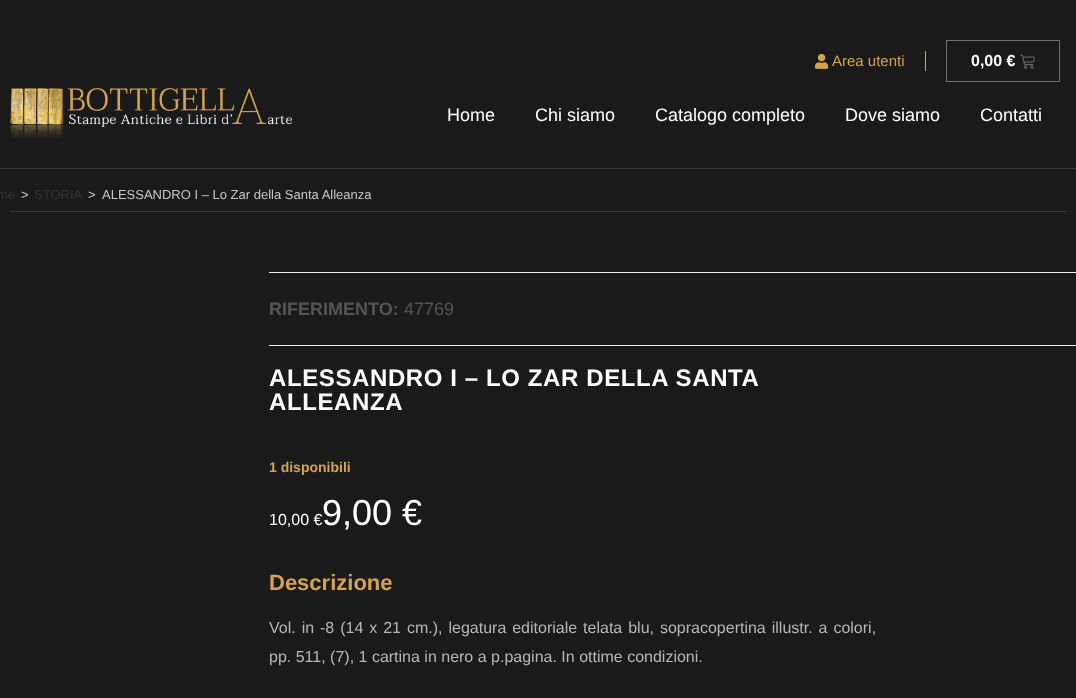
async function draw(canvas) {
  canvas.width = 1076;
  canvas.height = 698;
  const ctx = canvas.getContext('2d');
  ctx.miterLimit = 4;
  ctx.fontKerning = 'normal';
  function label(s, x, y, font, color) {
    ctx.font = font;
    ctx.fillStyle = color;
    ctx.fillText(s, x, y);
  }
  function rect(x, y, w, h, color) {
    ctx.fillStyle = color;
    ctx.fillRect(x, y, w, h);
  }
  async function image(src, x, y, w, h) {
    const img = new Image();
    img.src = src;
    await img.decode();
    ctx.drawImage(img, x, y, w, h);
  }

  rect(0, 0, 1076, 698, '#1a1a1a');
  rect(0, 168, 1076, 1, '#393939');
  await image('assets/img1.png', 10, 88, 282, 50);
  rect(925, 51, 1, 20, '#d6a44c');
  await image('assets/img2.png', 815, 53, 14, 16);
  label('Area utenti', 832, 66, '15px Liberation Sans', '#d6a44c');
  ctx.strokeStyle = '#69727d';
  ctx.strokeRect(946.5, 40.5, 113, 41);
  label('0,00 €', 971, 66, 'bold 16px Liberation Sans', '#fff');
  await image('assets/img3.png', 1020, 54, 15, 15);
  label('Home', 447, 121, '18px Liberation Sans', '#fff');
  label('Chi siamo', 535, 121, '18px Liberation Sans', '#fff');
  label('Catalogo completo', 655, 121, '18px Liberation Sans', '#fff');
  label('Dove siamo', 845, 121, '18px Liberation Sans', '#fff');
  label('Contatti', 980, 121, '18px Liberation Sans', '#fff');
  rect(10, 211, 1056, 1, '#393939');
  label('me', -3, 199, '13px Liberation Sans', '#333');
  label('>', 21, 199, '13px Liberation Sans', '#c6c6c6');
  label('STORIA', 34, 199, '13px Liberation Sans', '#333');
  label('>', 88, 199, '13px Liberation Sans', '#c6c6c6');
  label('ALESSANDRO I – Lo Zar della Santa Alleanza', 102, 199, '13px Liberation Sans', '#c6c6c6');
  rect(269, 272, 807, 1, '#eaeaea');
  rect(269, 345, 807, 1, '#eaeaea');
  label('RIFERIMENTO:', 269, 315, 'bold 18px Liberation Sans', '#555');
  label('47769', 404, 315, '18px Liberation Sans', '#555');
  ctx.letterSpacing = '0.6px';
  label('ALESSANDRO I – LO ZAR DELLA SANTA', 269, 386, 'bold 24px Liberation Sans', '#fff');
  label('ALLEANZA', 269, 410, 'bold 24px Liberation Sans', '#fff');
  ctx.letterSpacing = '0px';
  label('1 disponibili', 269, 472, 'bold 14px Liberation Sans', '#d6a44c');
  label('10,00 €', 269, 525, '16px Liberation Sans', '#fff');
  label('9,00 €', 322, 525, '36px Liberation Sans', '#fff');
  label('Descrizione', 269, 590, 'bold 22px Liberation Sans', '#d6a44c');
  ctx.wordSpacing = '1.5px';
  label('Vol. in -8 (14 x 21 cm.), legatura editoriale telata blu, sopracopertina illustr. a colori,', 269, 633, '16px Liberation Sans', '#b7b7b7');
  ctx.wordSpacing = '0px';
  label('pp. 511, (7), 1 cartina in nero a p.pagina. In ottime condizioni.', 269, 662, '16px Liberation Sans', '#b7b7b7');
}

draw(document.querySelector('canvas'));
